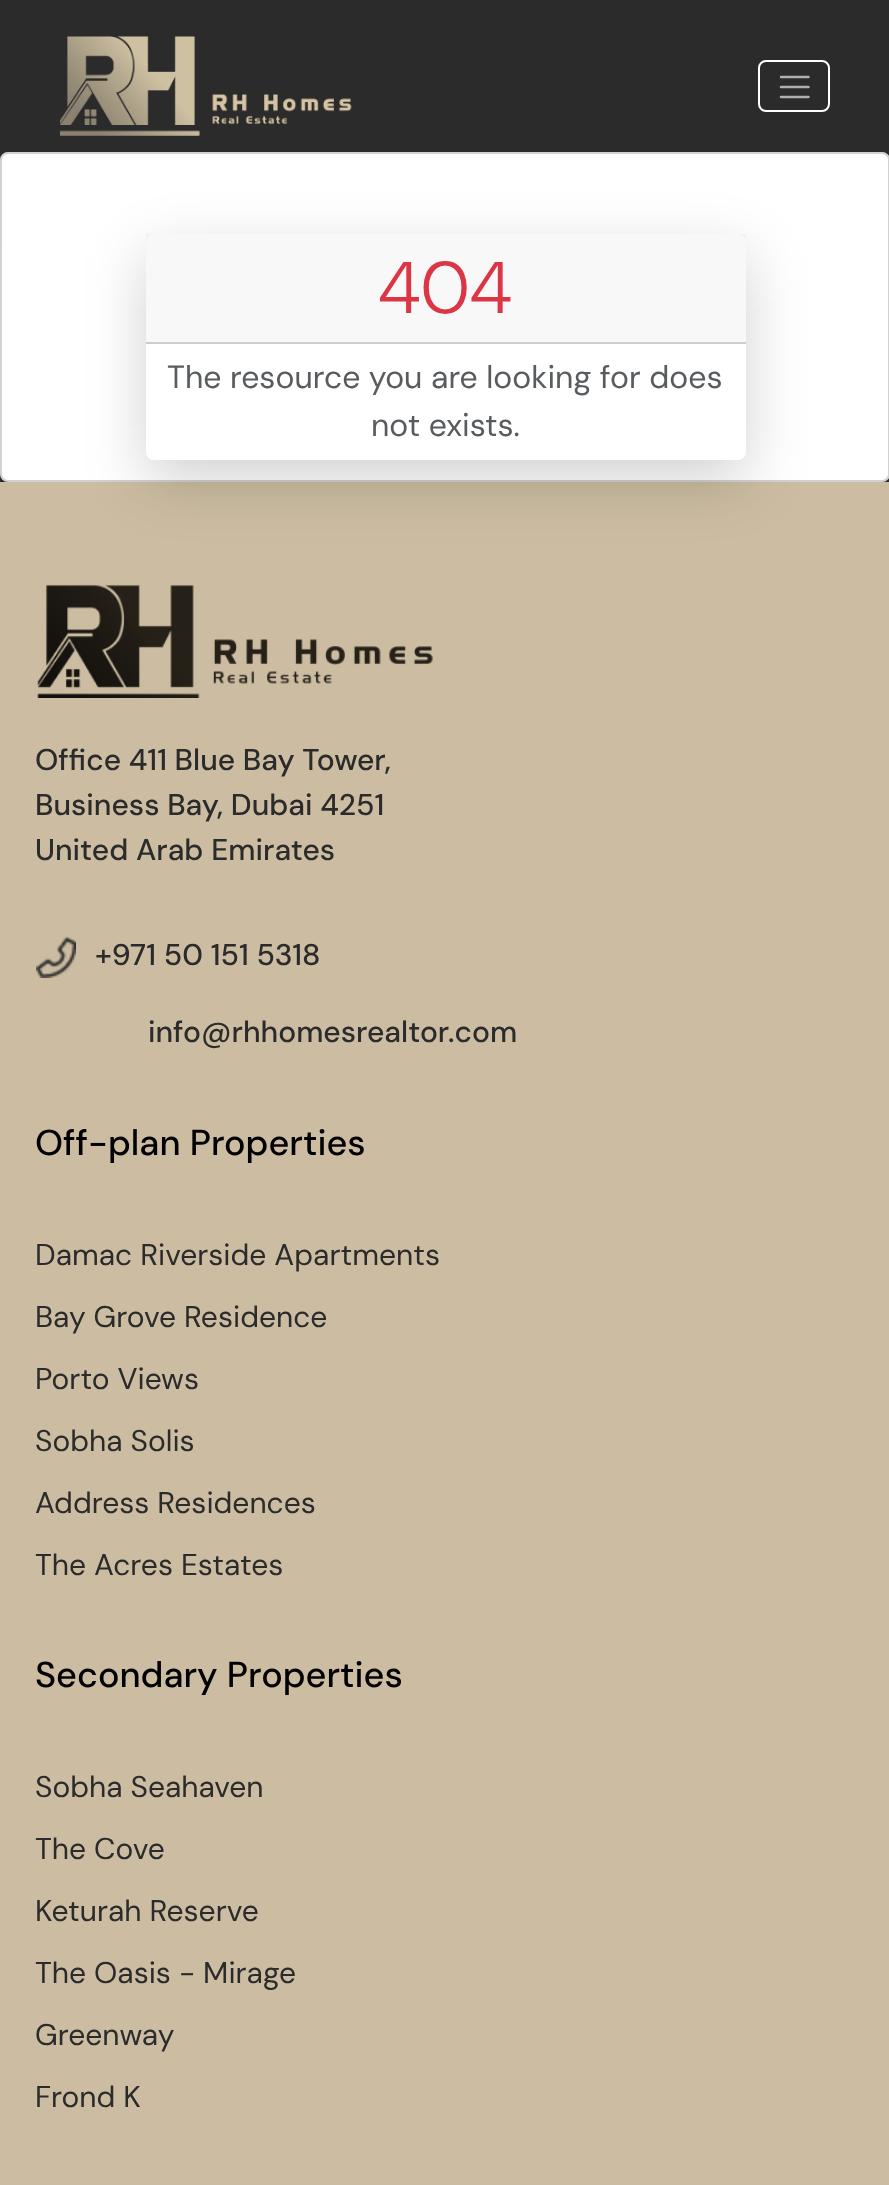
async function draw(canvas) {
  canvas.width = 889;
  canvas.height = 2185;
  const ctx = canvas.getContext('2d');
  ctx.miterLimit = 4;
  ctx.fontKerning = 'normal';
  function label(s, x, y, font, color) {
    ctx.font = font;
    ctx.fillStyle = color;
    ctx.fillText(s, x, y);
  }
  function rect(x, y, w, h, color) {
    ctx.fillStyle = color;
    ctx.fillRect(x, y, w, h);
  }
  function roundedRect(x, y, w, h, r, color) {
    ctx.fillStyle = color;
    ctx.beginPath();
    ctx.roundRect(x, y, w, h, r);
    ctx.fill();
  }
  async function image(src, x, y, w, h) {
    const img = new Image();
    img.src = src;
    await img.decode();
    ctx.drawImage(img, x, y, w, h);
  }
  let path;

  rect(0, 0, 889, 2185, '#2b2b2b');
  await image('assets/img1.png', 60, 36, 292, 100);
  ctx.beginPath();
  ctx.roundRect(759, 61, 70, 50, 7);
  ctx.strokeStyle = '#fff';
  ctx.lineWidth = 2;
  ctx.stroke();
  path = new Path2D('M781 77H808.5M781 87H808.5M781 97H808.5');
  ctx.strokeStyle = '#b1aeab';
  ctx.lineWidth = 2.5;
  ctx.lineCap = 'round';
  ctx.stroke(path);
  roundedRect(0, 152, 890, 330, 8, '#fff');
  ctx.beginPath();
  ctx.roundRect(1, 153, 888, 328, 7);
  ctx.strokeStyle = '#0000002e';
  ctx.lineWidth = 2;
  ctx.stroke();
  rect(0, 482, 889, 1703, '#ccbda2');
  ctx.fillStyle = '#0000002e';
  ctx.filter = 'blur(30px)';
  ctx.beginPath();
  ctx.roundRect(146, 254, 600, 226, 8);
  ctx.fill();
  ctx.filter = 'none';
  roundedRect(146, 234, 600, 226, 8, '#fff');
  rect(146, 234, 600, 108, '#21252908');
  rect(146, 342, 600, 2, '#cdcdcd');
  label('404', 378, 313, '300 73px DM Sans', '#dc3545');
  label('The resource you are looking for does', 167, 388, '32px "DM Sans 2"', '#595c5f');
  label('not exists.', 371, 436, '32px "DM Sans 2"', '#595c5f');
  await image('assets/img2.png', 37, 584, 396, 114);
  label('Office 411 Blue Bay Tower,', 35, 770, '500 30px DM Sans', '#2b2b2b');
  label('Business Bay, Dubai 4251', 35, 815, '500 30px DM Sans', '#2b2b2b');
  label('United Arab Emirates', 35, 860, '500 30px DM Sans', '#2b2b2b');
  await image('assets/img3.png', 36, 936, 40, 42);
  label('+971 50 151 5318', 95, 965, '500 30px DM Sans', '#2b2b2b');
  label('info@rhhomesrealtor.com', 148, 1042, '500 30px DM Sans', '#2b2b2b');
  label('Off-plan Properties', 35, 1155, '500 36px "DM Sans 2"', '#000');
  label('Damac Riverside Apartments', 35, 1265, '30px DM Sans', '#2b2b2b');
  label('Bay Grove Residence', 35, 1327, '30px DM Sans', '#2b2b2b');
  label('Porto Views', 35, 1389, '30px DM Sans', '#2b2b2b');
  label('Sobha Solis', 35, 1451, '30px DM Sans', '#2b2b2b');
  label('Address Residences', 35, 1513, '30px DM Sans', '#2b2b2b');
  label('The Acres Estates', 35, 1575, '30px DM Sans', '#2b2b2b');
  label('Secondary Properties', 35, 1687, '500 36px "DM Sans 2"', '#000');
  label('Sobha Seahaven', 35, 1797, '30px DM Sans', '#2b2b2b');
  label('The Cove', 35, 1859, '30px DM Sans', '#2b2b2b');
  label('Keturah Reserve', 35, 1921, '30px DM Sans', '#2b2b2b');
  label('The Oasis - Mirage', 35, 1983, '30px DM Sans', '#2b2b2b');
  label('Greenway', 35, 2045, '30px DM Sans', '#2b2b2b');
  label('Frond K', 35, 2107, '30px DM Sans', '#2b2b2b');
}

draw(document.querySelector('canvas'));
